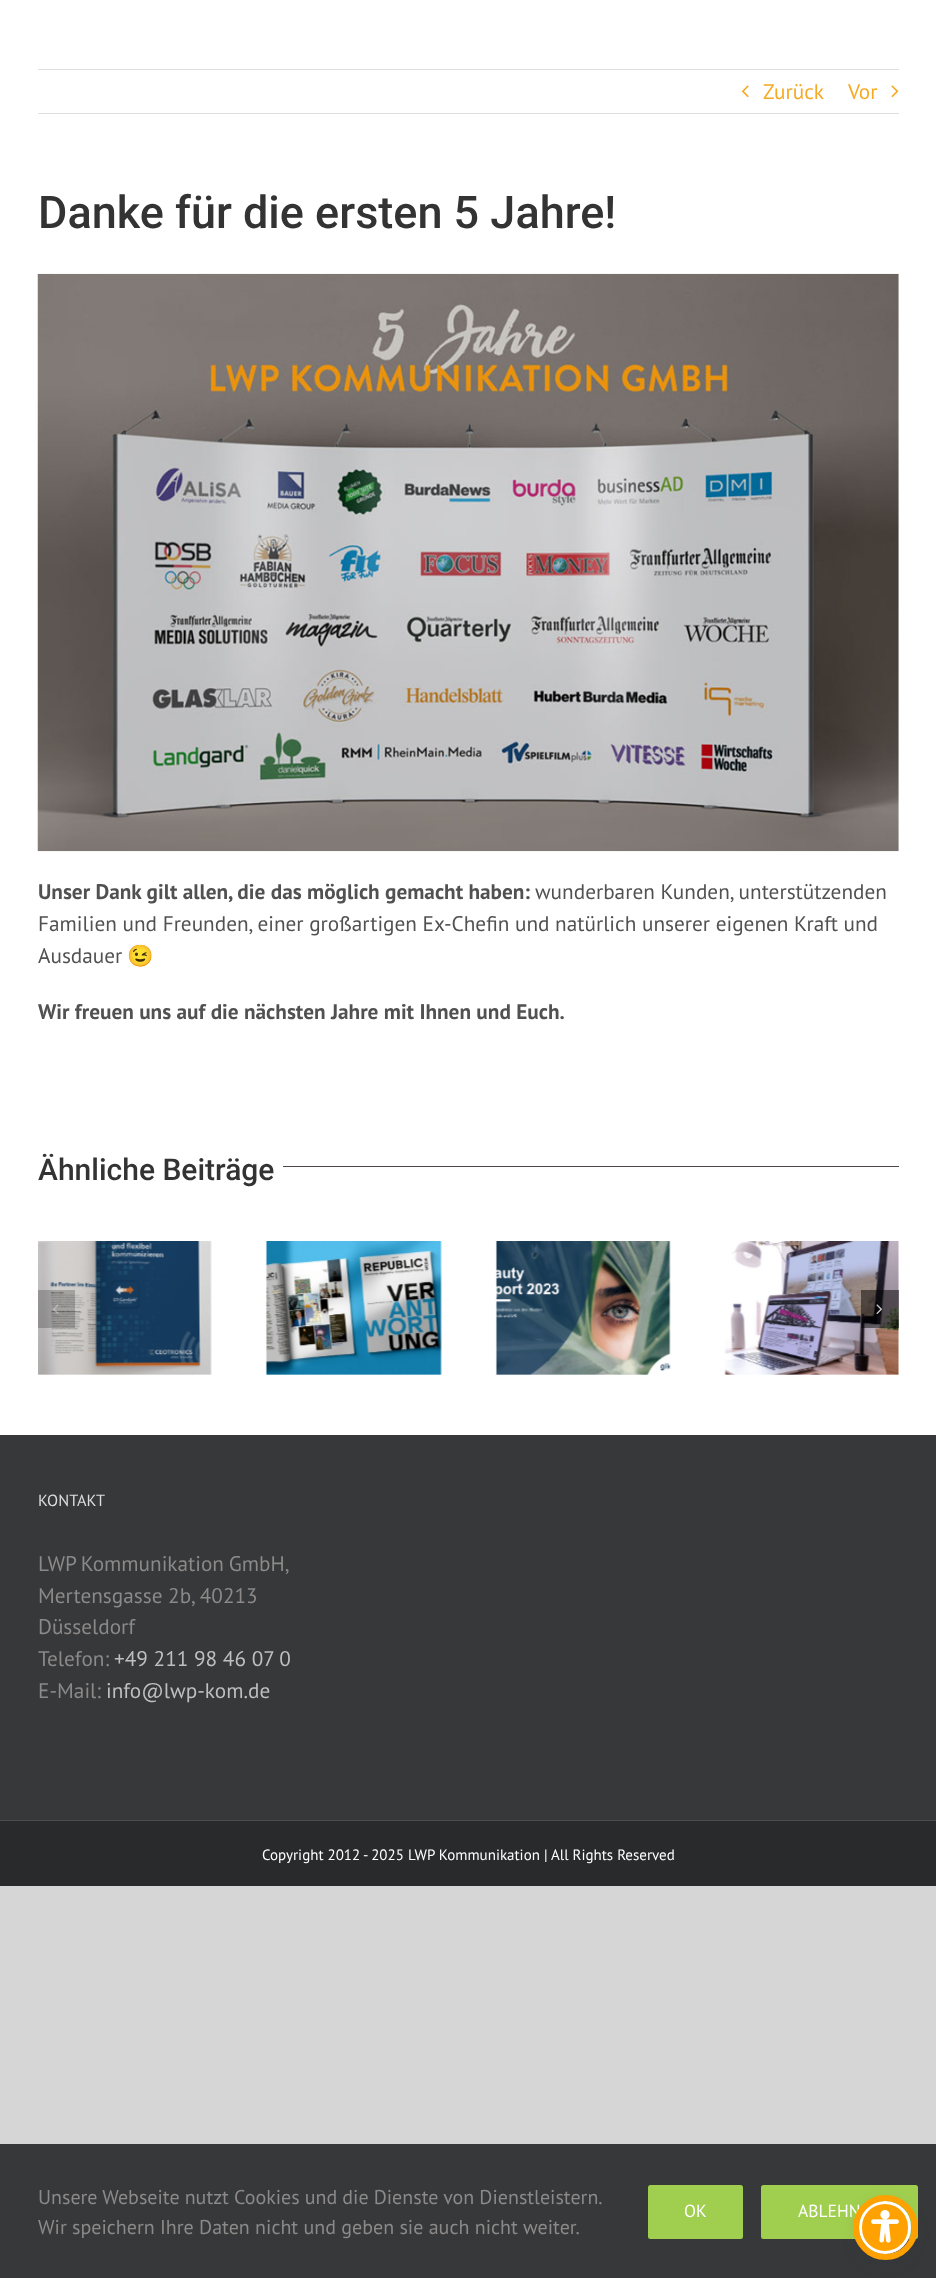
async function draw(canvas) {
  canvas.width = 936;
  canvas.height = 2278;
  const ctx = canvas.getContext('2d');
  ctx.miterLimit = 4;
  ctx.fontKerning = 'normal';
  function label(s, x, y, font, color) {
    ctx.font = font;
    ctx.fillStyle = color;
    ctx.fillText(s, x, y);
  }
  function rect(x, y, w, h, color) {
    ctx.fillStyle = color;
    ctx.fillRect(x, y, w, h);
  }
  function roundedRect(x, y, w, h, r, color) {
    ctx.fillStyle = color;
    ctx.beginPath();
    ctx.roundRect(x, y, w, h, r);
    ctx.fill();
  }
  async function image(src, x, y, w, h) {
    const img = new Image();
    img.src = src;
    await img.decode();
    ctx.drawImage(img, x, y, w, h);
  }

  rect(0, 0, 936, 2278, '#d7d6d6');
  rect(0, 0, 936, 1435, '#fff');
  rect(38, 69, 861, 1, '#e0dede');
  rect(38, 113, 861, 1, '#e0dede');
  await image('assets/img1.png', 741, 85, 8, 13);
  label('Zurück', 763, 99, '21.25px PT Sans', '#f6a923');
  label('Vor', 848, 99, '21.25px PT Sans', '#f6a923');
  await image('assets/img2.png', 891, 85, 8, 13);
  label('Danke für die ersten 5 Jahre!', 38, 228, '500 45px Roboto', '#333');
  await image('assets/img3.png', 37, 273, 862, 579);
  label('Unser Dank gilt allen, die das möglich gemacht haben:', 38, 899, 'bold 21.25px PT Sans', '#515151');
  label('wunderbaren Kunden, unterstützenden', 535, 899, '21.25px PT Sans', '#515151');
  label('Familien und Freunden, einer großartigen Ex-Chefin und natürlich unserer eigenen Kraft und', 38, 931, '21.25px PT Sans', '#515151');
  label('Ausdauer', 38, 963, '21.25px PT Sans', '#515151');
  label('😉', 127, 963, '21.25px Noto Color Emoji', '#515151');
  label('Wir freuen uns auf die nächsten Jahre mit Ihnen und Euch.', 38, 1019, 'bold 21.25px PT Sans', '#515151');
  label('Ähnliche Beiträge', 38, 1180, '500 30px Roboto', '#333');
  rect(283, 1166, 616, 1, '#514545');
  await image('assets/img4.png', 38, 1241, 174, 134);
  await image('assets/img5.png', 265, 1241, 177, 134);
  await image('assets/img6.png', 495, 1241, 176, 134);
  await image('assets/img7.png', 724, 1241, 175, 134);
  rect(38, 1290, 37, 38, '#00000036');
  await image('assets/img8.png', 53, 1304, 6, 10);
  rect(861, 1290, 38, 38, '#0000007a');
  await image('assets/img9.png', 876, 1304, 6, 10);
  rect(0, 1435, 936, 385, '#363839');
  label('KONTAKT', 38, 1506, '16.25px PT Sans', '#ddd');
  ctx.wordSpacing = '-1px';
  label('LWP Kommunikation GmbH,', 38, 1571, '21.25px PT Sans', '#8c8989');
  ctx.wordSpacing = '0px';
  label('Mertensgasse 2b, 40213', 38, 1603, '21.25px PT Sans', '#8c8989');
  label('Düsseldorf', 38, 1634, '21.25px PT Sans', '#8c8989');
  label('Telefon:', 38, 1666, '21.25px PT Sans', '#8c8989');
  label('+49 211 98 46 07 0', 114, 1666, '21.25px PT Sans', '#bfbfbf');
  label('E-Mail:', 38, 1698, '21.25px PT Sans', '#8c8989');
  label('info@lwp-kom.de', 106, 1698, '21.25px PT Sans', '#bfbfbf');
  rect(0, 1821, 936, 65, '#282a2b');
  rect(0, 1820, 936, 1, '#4b4c4d');
  label('Copyright 2012 - 2025 LWP Kommunikation | All Rights Reserved', 262, 1860, '15px PT Sans', '#fff');
  rect(0, 2144, 936, 134, '#363839');
  ctx.wordSpacing = '-0.25px';
  label('Unsere Webseite nutzt Cookies und die Dienste von Dienstleistern.', 38, 2204, '20px PT Sans', '#8c8989');
  ctx.wordSpacing = '0px';
  label('Wir speichern Ihre Daten nicht und geben sie auch nicht weiter.', 38, 2234, '20px PT Sans', '#8c8989');
  roundedRect(648, 2185, 95, 54, 2.5, '#a0ce4e');
  label('OK', 684, 2217, '17.5px PT Sans', '#fff');
  roundedRect(761, 2185, 157, 54, 2.5, '#a0ce4e');
  label('ABLEHN', 798, 2217, '17.5px PT Sans', '#fff');
  ctx.fillStyle = '#5d649433';
  ctx.filter = 'blur(2.5px)';
  ctx.beginPath();
  ctx.roundRect(859, 2204, 52, 52, 26);
  ctx.fill();
  ctx.filter = 'none';
  ctx.fillStyle = '#252c6126';
  ctx.filter = 'blur(9.5px)';
  ctx.beginPath();
  ctx.roundRect(859, 2208, 52, 52, 26);
  ctx.fill();
  ctx.filter = 'none';
  ctx.fillStyle = '#ffa100';
  ctx.beginPath();
  ctx.roundRect(860.5, 2202.5, 49, 50, 24.5);
  ctx.fill();
  ctx.strokeStyle = '#fff';
  ctx.lineWidth = 3;
  ctx.stroke();
  ctx.beginPath();
  ctx.arc(885.5, 2227.5, 29.5, 0, 2 * Math.PI);
  ctx.strokeStyle = '#ffa100';
  ctx.lineWidth = 6;
  ctx.stroke();
  await image('assets/img10.png', 871, 2210, 28, 33);
}

draw(document.querySelector('canvas'));
